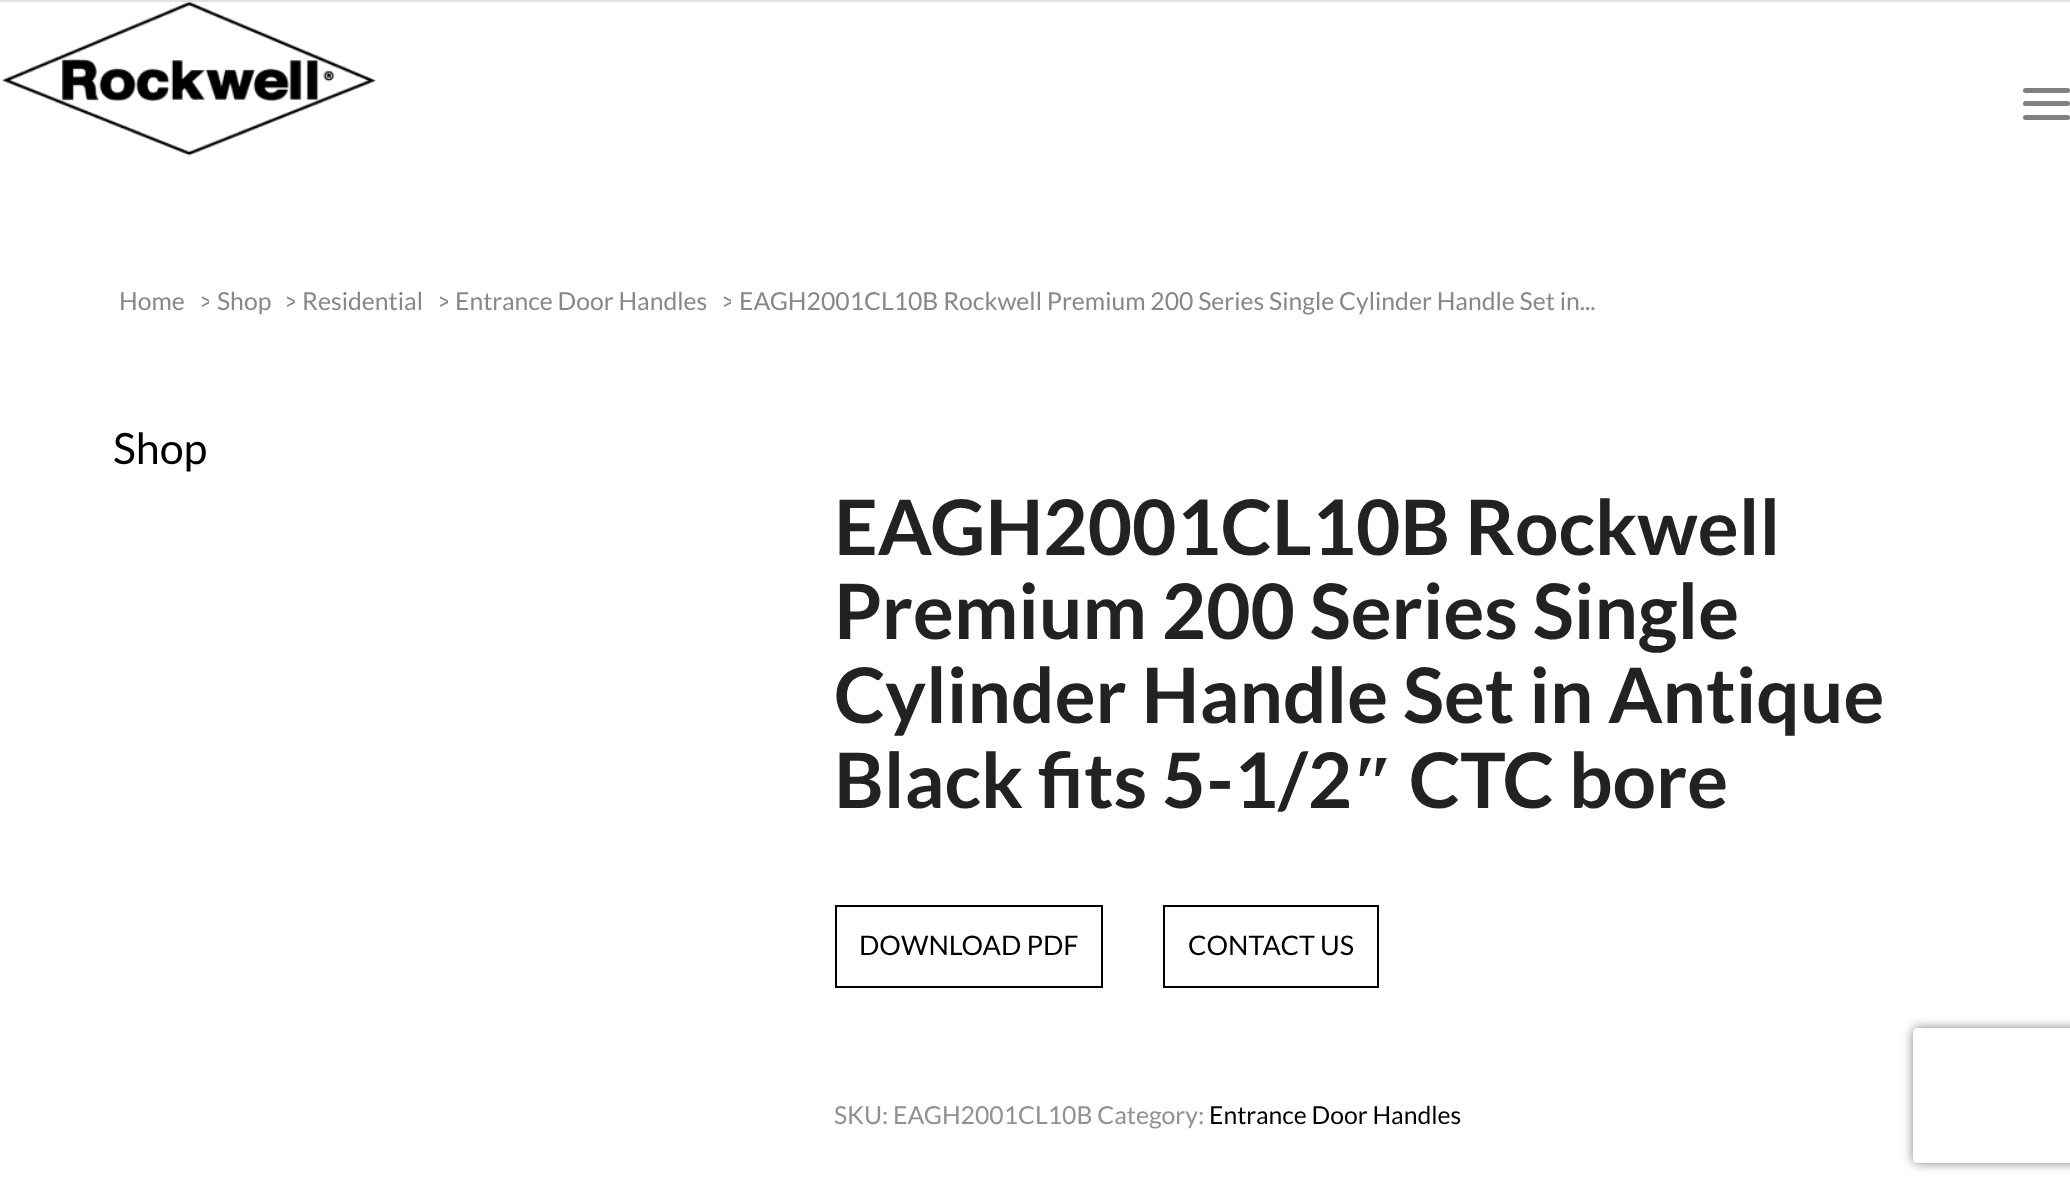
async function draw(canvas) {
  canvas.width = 2070;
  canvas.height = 1194;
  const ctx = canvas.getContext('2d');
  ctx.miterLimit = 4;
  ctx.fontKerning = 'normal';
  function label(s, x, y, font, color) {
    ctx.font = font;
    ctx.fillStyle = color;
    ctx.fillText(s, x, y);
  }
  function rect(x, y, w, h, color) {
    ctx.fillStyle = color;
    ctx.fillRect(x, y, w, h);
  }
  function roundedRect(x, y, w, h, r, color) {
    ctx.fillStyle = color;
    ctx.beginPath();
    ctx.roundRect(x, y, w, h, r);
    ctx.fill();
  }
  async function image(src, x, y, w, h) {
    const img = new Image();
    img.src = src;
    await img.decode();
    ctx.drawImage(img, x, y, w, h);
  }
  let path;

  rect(0, 0, 2070, 1194, '#fff');
  rect(0, 0, 2070, 2, '#e1e1e1');
  await image('assets/img1.png', 2, 2, 374, 154);
  roundedRect(2023, 101, 47, 5, 2.5, '#808080');
  roundedRect(2023, 88, 47, 5, 2.5, '#808080');
  roundedRect(2023, 115, 47, 5, 2.5, '#808080');
  label('Home', 119, 310, '24.75px Lato', '#888');
  ctx.save();
  ctx.beginPath();
  ctx.rect(191, 284, 18, 33);
  ctx.clip();
  label('>', 199, 310, '24.75px Lato', '#888');
  ctx.restore();
  label('Shop', 217, 310, '24.75px Lato', '#888');
  ctx.save();
  ctx.beginPath();
  ctx.rect(277, 284, 18, 33);
  ctx.clip();
  label('>', 284, 310, '24.75px Lato', '#888');
  ctx.restore();
  label('Residential', 302, 310, '24.75px Lato', '#888');
  ctx.save();
  ctx.beginPath();
  ctx.rect(430, 284, 18, 33);
  ctx.clip();
  label('>', 437, 310, '24.75px Lato', '#888');
  ctx.restore();
  label('Entrance Door Handles', 455, 310, '24.75px Lato', '#888');
  ctx.save();
  ctx.beginPath();
  ctx.rect(713, 284, 18, 33);
  ctx.clip();
  label('>', 721, 310, '24.75px Lato', '#888');
  ctx.restore();
  label('EAGH2001CL10B Rockwell Premium 200 Series Single Cylinder Handle Set in...', 739, 310, '24.75px Lato', '#888');
  label('Shop', 113, 464, '43px Lato', '#000');
  label('EAGH2001CL10B Rockwell', 834, 555, 'bold 76.5px Lato', '#222');
  label('Premium 200 Series Single', 834, 639, 'bold 76.5px Lato', '#222');
  label('Cylinder Handle Set in Antique', 834, 723, 'bold 76.5px Lato', '#222');
  label('Black fits 5-1/2', 834, 808, 'bold 76.5px Lato', '#222');
  label('″', 1352, 808, 'bold 76.5px Liberation Serif', '#222');
  label('CTC bore', 1409, 808, 'bold 76.5px Lato', '#222');
  ctx.strokeStyle = '#000';
  ctx.lineWidth = 2;
  ctx.strokeRect(836, 906, 266, 81);
  label('DOWNLOAD PDF', 859, 955, '27px Lato', '#000');
  ctx.strokeRect(1164, 906, 214, 81);
  label('CONTACT US', 1188, 955, '27px Lato', '#000');
  label('SKU: EAGH2001CL10B Category:', 834, 1124, '24.75px Lato', '#919191');
  label('Entrance Door Handles', 1209, 1124, '24.75px Lato', '#000');
  ctx.save();
  path = new Path2D('M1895 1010H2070V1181H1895ZM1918 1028H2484C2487 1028 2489 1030 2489 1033V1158C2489 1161 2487 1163 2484 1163H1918C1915 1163 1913 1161 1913 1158V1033C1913 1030 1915 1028 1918 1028Z');
  ctx.clip(path, 'evenodd');
  ctx.fillStyle = '#808080';
  ctx.filter = 'blur(5.5px)';
  ctx.beginPath();
  ctx.roundRect(1913, 1028, 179, 135, 5);
  ctx.fill();
  ctx.filter = 'none';
  ctx.restore();
}

draw(document.querySelector('canvas'));
